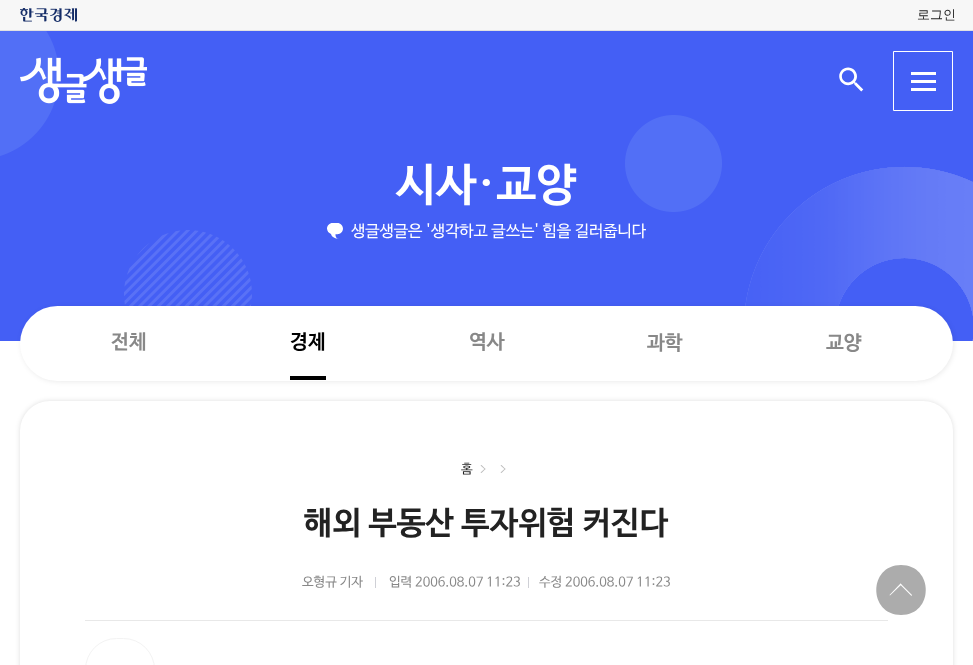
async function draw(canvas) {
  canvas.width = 973;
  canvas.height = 665;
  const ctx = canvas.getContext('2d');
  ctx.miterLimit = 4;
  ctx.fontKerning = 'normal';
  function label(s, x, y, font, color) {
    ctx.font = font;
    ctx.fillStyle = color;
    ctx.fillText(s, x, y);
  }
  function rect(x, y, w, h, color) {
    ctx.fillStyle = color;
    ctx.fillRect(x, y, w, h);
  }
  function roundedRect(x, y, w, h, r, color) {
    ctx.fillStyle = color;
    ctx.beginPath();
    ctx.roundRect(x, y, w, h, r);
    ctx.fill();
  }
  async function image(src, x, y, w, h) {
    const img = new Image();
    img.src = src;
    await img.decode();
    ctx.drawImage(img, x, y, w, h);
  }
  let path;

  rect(0, 0, 973, 665, '#fff');
  rect(0, 0, 973, 30, '#f7f7f7');
  rect(0, 30, 973, 1, '#e1e1e1');
  await image('assets/img1.png', 20, 8, 57, 14);
  label('로그인', 917, 19, '500 13px WenQuanYi Zen Hei', '#222');
  rect(0, 31, 973, 310, '#445ff5');
  await image('assets/img2.png', 0, 31, 973, 310);
  await image('assets/img3.png', 20, 57, 127, 47);
  await image('assets/img4.png', 839, 67, 25, 25);
  path = new Path2D('M893.5 51.5H952.5V110.5H893.5Z');
  ctx.strokeStyle = '#fff';
  ctx.stroke(path);
  rect(911, 80, 25, 3, '#fff');
  rect(911, 72, 25, 3, '#fff');
  rect(911, 88, 25, 3, '#fff');
  label('시사·교양', 396, 199, 'bold 45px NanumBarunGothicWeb', '#fff');
  await image('assets/img5.png', 327, 223, 16, 16);
  label('생글생글은 \'생각하고 글쓰는\' 힘을 길러줍니다', 351, 236, '16px NanumBarunGothicWeb', '#fff');
  ctx.fillStyle = '#00000014';
  ctx.filter = 'blur(2.5px)';
  ctx.beginPath();
  ctx.roundRect(21, 307, 933, 75, 37.5);
  ctx.fill();
  ctx.filter = 'none';
  roundedRect(20, 306, 933, 75, 37.5, '#fff');
  ctx.font = 'bold 20px NanumBarunGothicWeb';
  ctx.fillStyle = '#888';
  ctx.save();
  ctx.translate(111, 348);
  ctx.rotate(0.1 * Math.PI / 180);
  ctx.fillText('전체', 0, 0);
  ctx.restore();
  ctx.fillStyle = '#000';
  ctx.save();
  ctx.translate(290, 348);
  ctx.rotate(0.1 * Math.PI / 180);
  ctx.fillText('경제', 0, 0);
  ctx.restore();
  rect(290, 376, 36, 4, '#000');
  ctx.fillStyle = '#888';
  ctx.save();
  ctx.translate(469, 348);
  ctx.rotate(0.1 * Math.PI / 180);
  ctx.fillText('역사', 0, 0);
  ctx.restore();
  ctx.save();
  ctx.translate(647, 349);
  ctx.rotate(0.1 * Math.PI / 180);
  ctx.fillText('과학', 0, 0);
  ctx.restore();
  ctx.save();
  ctx.translate(826, 349);
  ctx.rotate(0.1 * Math.PI / 180);
  ctx.fillText('교양', 0, 0);
  ctx.restore();
  ctx.fillStyle = '#00000021';
  ctx.filter = 'blur(2.5px)';
  ctx.beginPath();
  ctx.roundRect(20, 401, 933, 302, 30);
  ctx.fill();
  ctx.filter = 'none';
  roundedRect(20, 401, 933, 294, 30, '#fff');
  ctx.font = '13px NanumBarunGothicWeb';
  ctx.fillStyle = '#222';
  ctx.save();
  ctx.translate(461, 473);
  ctx.rotate(0.1 * Math.PI / 180);
  ctx.fillText('홈', 0, 0);
  ctx.restore();
  ctx.fillStyle = '#bbb';
  path = new Path2D('M481.5 465L485.5 469L485 469.5L480.5 465.5Z');
  ctx.fill(path);
  path = new Path2D('M485 468.5L485.5 469L481.5 473L480.5 472.5ZM501.5 465L505.5 469L505 469.5L500.5 465.5Z');
  ctx.fill(path);
  path = new Path2D('M505 468.5L505.5 469L501.5 473L500.5 472.5Z');
  ctx.fill(path);
  rect(85, 620, 803, 1, '#e8e8e8');
  label('해외 부동산 투자위험 커진다', 304, 533, 'bold 32px NanumBarunGothicWeb', '#222');
  label('오형규 기자', 302, 586, '13px NanumBarunGothicWeb', '#888');
  rect(375, 577, 1, 11, '#cfd0d6');
  label('입력 2006.08.07 11:23', 389, 586, '13px NanumBarunGothicWeb', '#888');
  rect(528, 577, 1, 11, '#cfd0d6');
  label('수정 2006.08.07 11:23', 539, 586, '13px NanumBarunGothicWeb', '#888');
  ctx.beginPath();
  ctx.roundRect(85.5, 638.5, 69, 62, 34.5);
  ctx.strokeStyle = '#f3f3f3';
  ctx.stroke();
  ctx.fillStyle = '#acacac';
  path = new Path2D('M901 565C934 565 934 615 901 615C868 615 868 565 901 565Z');
  ctx.fill(path);
  ctx.fillStyle = '#fff';
  path = new Path2D('M900.5 583.5L912 595L911.5 596L900 584.5Z');
  ctx.fill(path);
  path = new Path2D('M900.5 583.5L901.5 584.5L890 595.5L889.5 595Z');
  ctx.fill(path);
}

draw(document.querySelector('canvas'));
